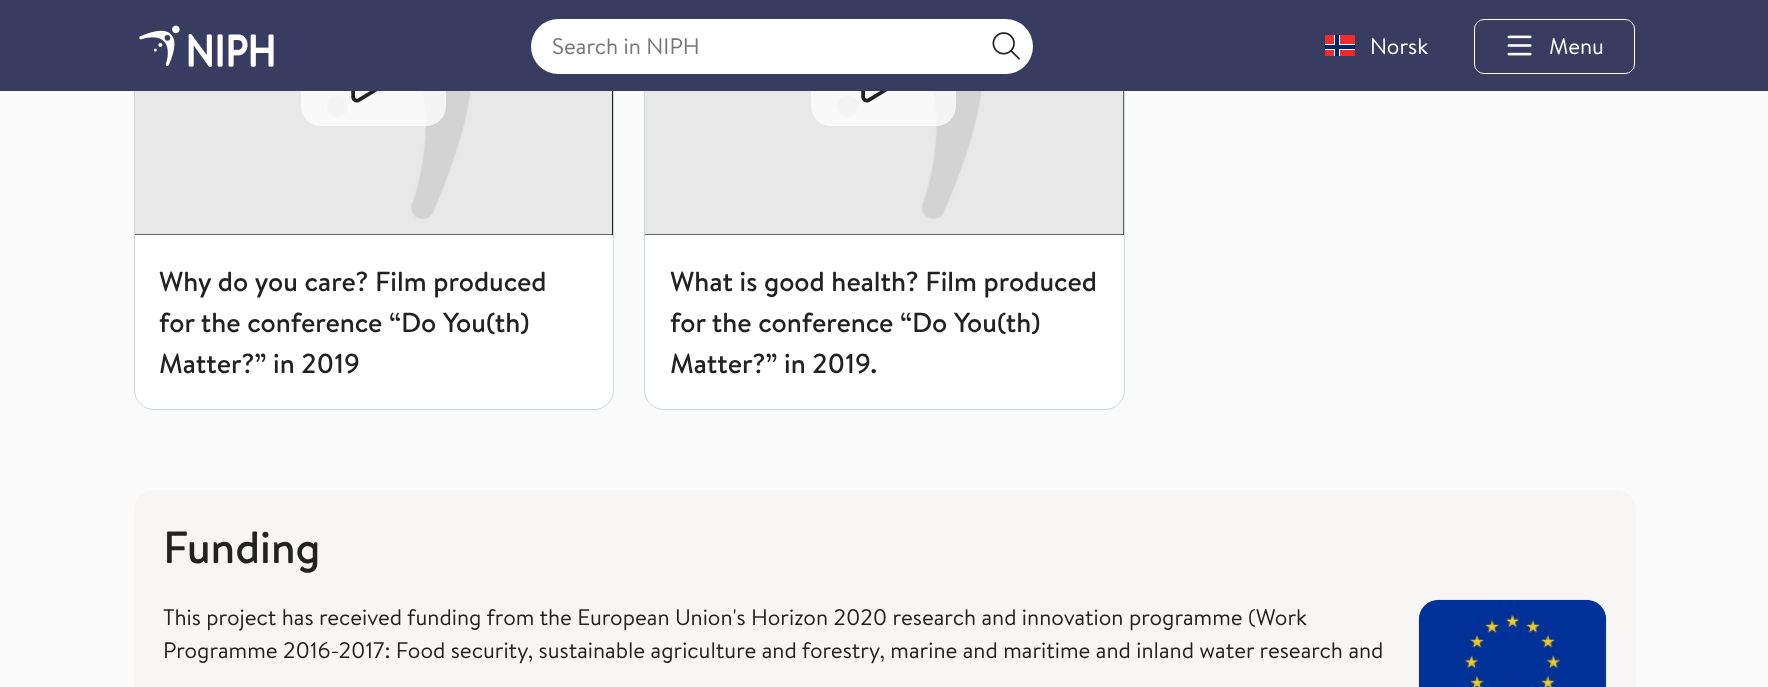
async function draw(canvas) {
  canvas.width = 1768;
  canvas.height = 687;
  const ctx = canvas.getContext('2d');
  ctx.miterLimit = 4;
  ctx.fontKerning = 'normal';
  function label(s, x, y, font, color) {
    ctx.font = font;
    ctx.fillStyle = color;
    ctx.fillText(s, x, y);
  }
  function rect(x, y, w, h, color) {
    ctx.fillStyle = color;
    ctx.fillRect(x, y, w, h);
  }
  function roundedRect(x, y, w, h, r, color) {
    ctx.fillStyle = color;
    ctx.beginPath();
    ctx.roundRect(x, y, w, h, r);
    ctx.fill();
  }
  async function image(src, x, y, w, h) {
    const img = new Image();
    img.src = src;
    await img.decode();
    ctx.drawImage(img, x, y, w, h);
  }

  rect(0, 0, 1768, 687, '#fbfbfb');
  ctx.fillStyle = '#fff';
  ctx.beginPath();
  ctx.roundRect(134.5, -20.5, 479, 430, 19.5);
  ctx.fill();
  ctx.strokeStyle = '#cbd9df';
  ctx.stroke();
  rect(135, 91, 478, 144, '#000');
  await image('assets/img5.png', 135, 91, 478, 144);
  roundedRect(301, 26, 145, 100, 20, '#ffffffbf');
  ctx.fillStyle = '#fff';
  ctx.beginPath();
  ctx.roundRect(644.5, -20.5, 480, 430, 19.5);
  ctx.fill();
  ctx.stroke();
  rect(645, 91, 479, 144, '#000');
  await image('assets/img6.png', 645, 91, 479, 144);
  roundedRect(811, 26, 145, 100, 20, '#ffffffbf');
  rect(0, 0, 1768, 91, '#393c61');
  await image('assets/img1.png', 139, 25, 135, 43);
  roundedRect(531, 19, 502, 55, 27.5, '#fff');
  label('Search in NIPH', 552, 54, '22.5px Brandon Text', '#767676');
  await image('assets/img2.png', 992, 32, 28, 28);
  rect(1325, 35, 30, 21, '#ef2b2d');
  rect(1334, 35, 6, 21, '#fff');
  rect(1325, 44, 30, 6, '#fff');
  rect(1335, 35, 4, 21, '#002868');
  rect(1325, 45, 30, 4, '#002868');
  label('Norsk', 1370, 54, '22.5px Brandon Text', '#fff');
  ctx.beginPath();
  ctx.roundRect(1474.5, 19.5, 160, 54, 9.5);
  ctx.strokeStyle = '#fff';
  ctx.stroke();
  await image('assets/img3.png', 1507, 35, 25, 21);
  label('Menu', 1549, 54, '22.5px Brandon Text', '#fff');
  await image('assets/img4.png', 351, 91, 27, 12);
  label('Why do you care? Film produced', 159, 291, '500 27.5px Brandon Text', '#222');
  label('for the conference “Do You(th)', 159, 332, '500 27.5px Brandon Text', '#222');
  label('Matter?” in 2019', 159, 373, '500 27.5px Brandon Text', '#222');
  await image('assets/img4.png', 861, 91, 27, 12);
  label('What is good health? Film produced', 670, 291, '500 27.5px Brandon Text', '#222');
  label('for the conference “Do You(th)', 670, 332, '500 27.5px Brandon Text', '#222');
  label('Matter?” in 2019.', 670, 373, '500 27.5px Brandon Text', '#222');
  roundedRect(134, 490, 1502, 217, 20, '#f7f6f5');
  label('Funding', 163, 563, '500 45px Brandon Text', '#222');
  label('This project has received funding from the European Union\'s Horizon 2020 research and innovation programme (Work', 163, 625, '22.5px Brandon Text', '#222');
  await image('assets/img7.png', 1418, 599, 189, 88);
  label('Programme 2016-2017: Food security, sustainable agriculture and forestry, marine and maritime and inland water research and', 163, 658, '22.5px Brandon Text', '#222');
}

draw(document.querySelector('canvas'));
